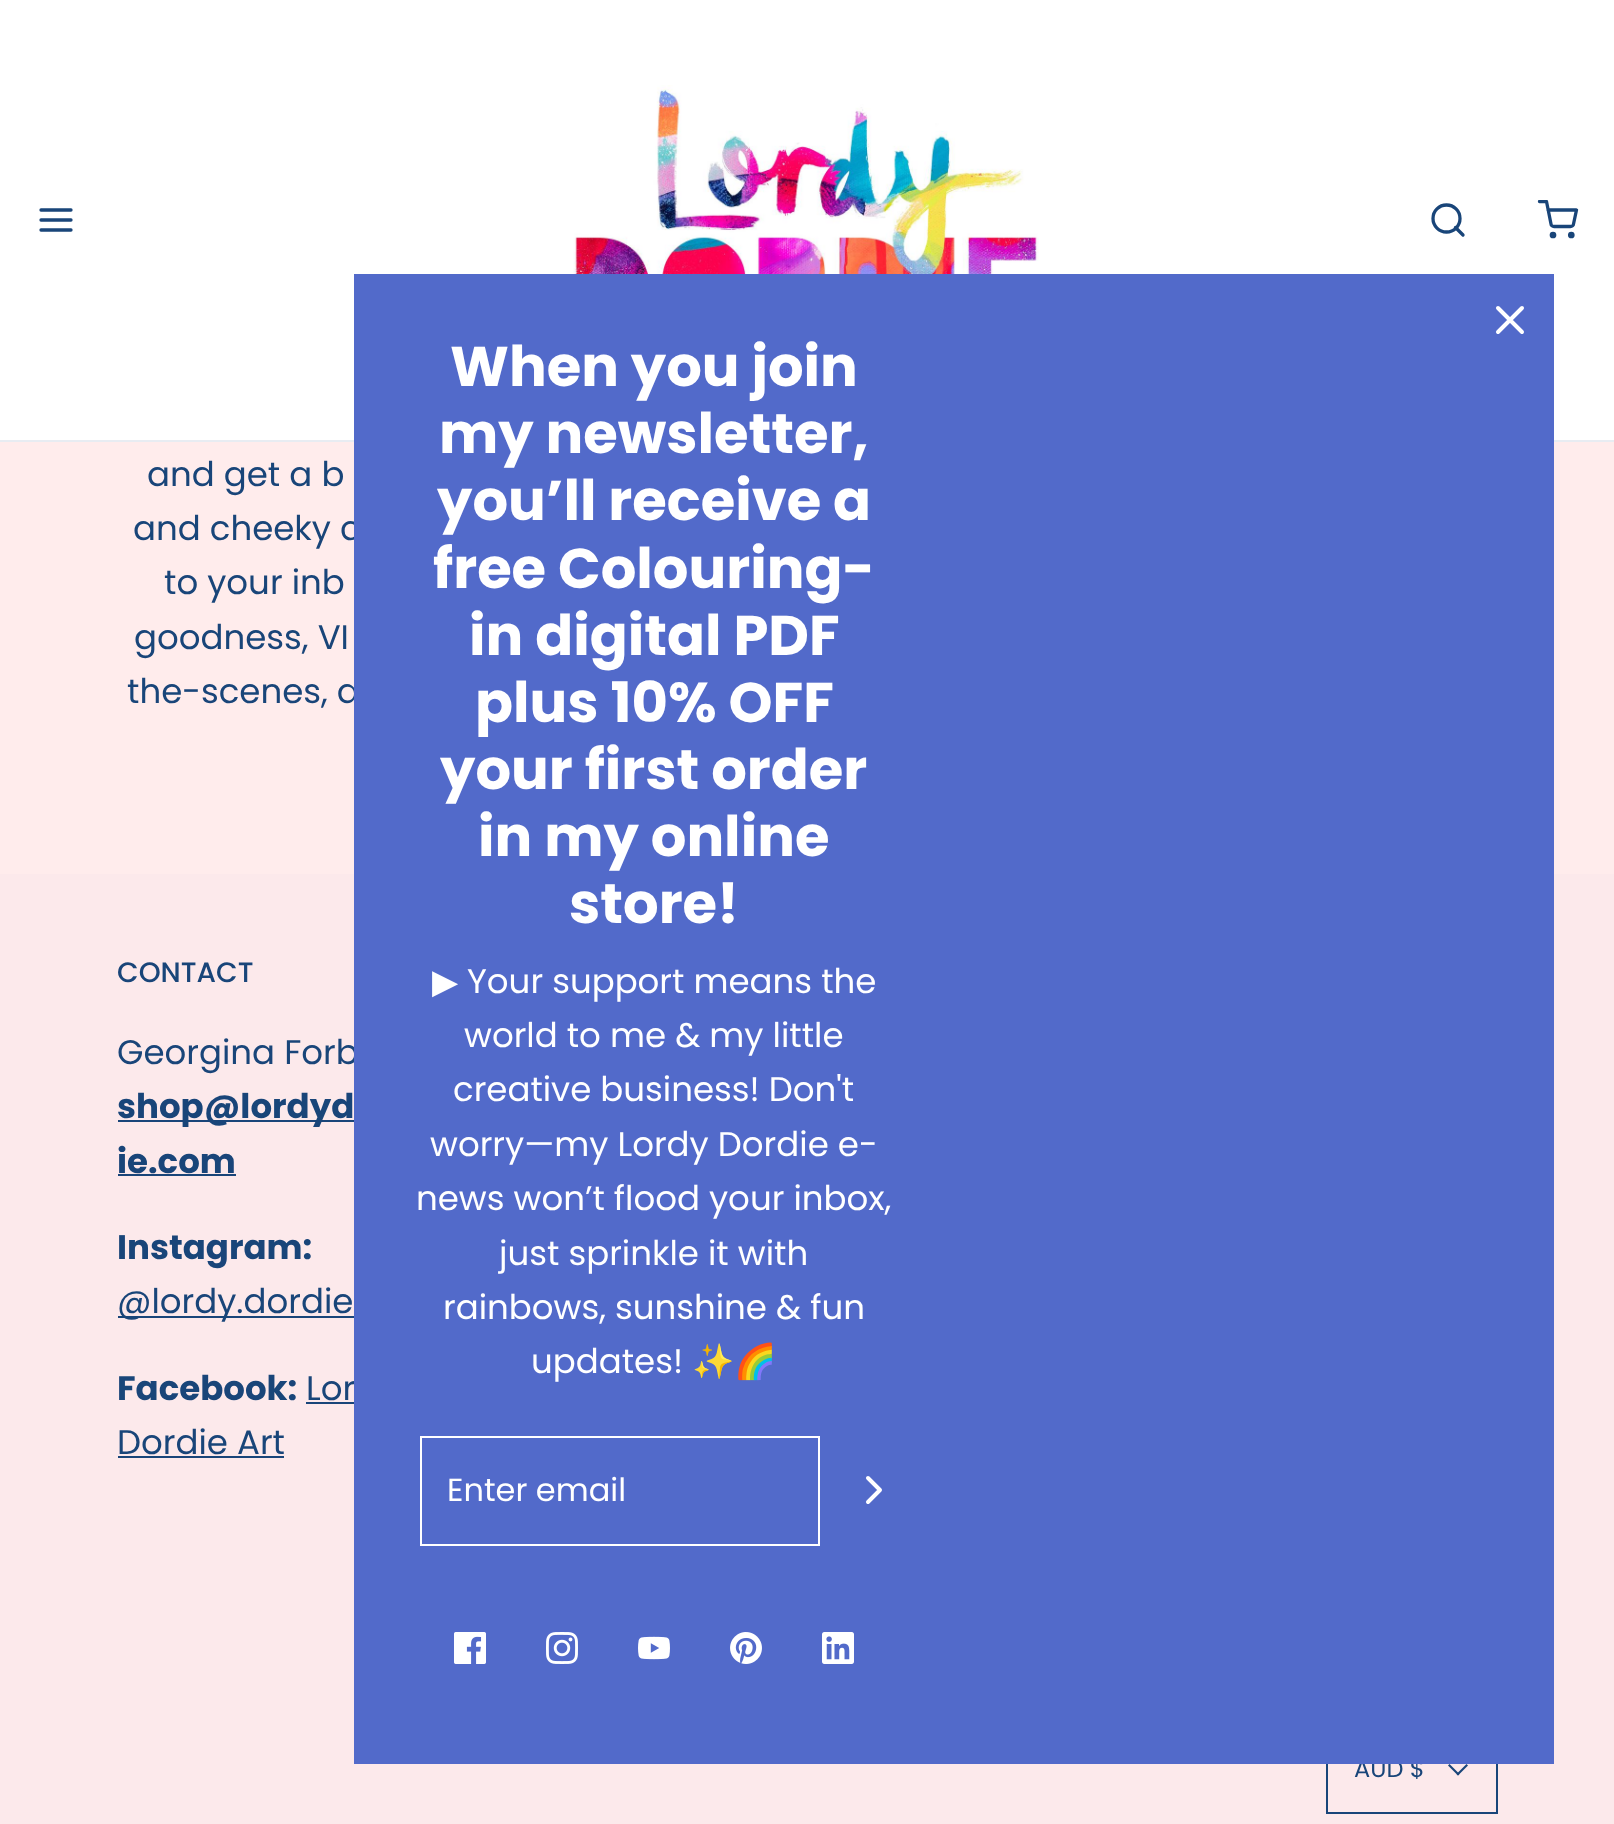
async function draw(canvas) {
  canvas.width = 1614;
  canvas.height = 1824;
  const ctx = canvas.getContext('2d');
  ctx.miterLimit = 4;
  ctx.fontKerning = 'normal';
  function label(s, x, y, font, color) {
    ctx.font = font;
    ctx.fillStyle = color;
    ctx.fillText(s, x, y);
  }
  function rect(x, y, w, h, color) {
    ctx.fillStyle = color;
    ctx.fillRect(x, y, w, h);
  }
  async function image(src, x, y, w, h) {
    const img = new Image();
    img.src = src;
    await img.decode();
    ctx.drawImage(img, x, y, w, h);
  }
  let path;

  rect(0, 0, 1614, 1824, '#ffecec');
  rect(0, 0, 1614, 440, '#fff');
  rect(0, 440, 1614, 2, '#e8ecf2');
  label('and cheeky c', 133, 540, '34px Poppins', '#194579');
  label('the-scenes, a', 127, 703, '34px Poppins', '#194579');
  rect(0, 874, 1614, 950, '#fce9eb');
  label('Georgina Forb', 117, 1064, '34px Poppins', '#194579');
  label('Lor', 306, 1400, '34px Poppins', '#194579');
  ctx.strokeStyle = '#194579';
  ctx.lineWidth = 2;
  ctx.strokeRect(1327, 1721, 170, 92);
  label('AUD $', 1354, 1777, '24px Poppins', '#194579');
  rect(354, 274, 1200, 1490, '#526aca');
  path = new Path2D('M1522 308L1498 332M1498 308L1522 332');
  ctx.strokeStyle = '#fff';
  ctx.lineWidth = 4;
  ctx.lineCap = 'round';
  ctx.lineJoin = 'round';
  ctx.stroke(path);
  label('When you join', 450, 386, 'bold 56px Poppins', '#fff');
  label('my newsletter,', 439, 453, 'bold 56px Poppins', '#fff');
  label('you’ll receive a', 437, 520, 'bold 56px Poppins', '#fff');
  label('free Colouring-', 433, 588, 'bold 56px Poppins', '#fff');
  label('in digital PDF', 469, 655, 'bold 56px Poppins', '#fff');
  label('plus 10% OFF', 475, 722, 'bold 56px Poppins', '#fff');
  label('your first order', 440, 789, 'bold 56px Poppins', '#fff');
  label('in my online', 478, 856, 'bold 56px Poppins', '#fff');
  label('store!', 569, 923, 'bold 56px Poppins', '#fff');
  label('▶', 432, 993, '34px DejaVu Sans', '#fff');
  label('Your support means the', 467, 993, '34px Poppins', '#fff');
  label('world to me & my little', 464, 1047, '34px Poppins', '#fff');
  label('creative business! Don\'t', 453, 1101, '34px Poppins', '#fff');
  label('worry—my Lordy Dordie e-', 430, 1156, '34px Poppins', '#fff');
  label('news won’t flood your inbox,', 416, 1210, '34px Poppins', '#fff');
  label('just sprinkle it with', 499, 1265, '34px Poppins', '#fff');
  label('rainbows, sunshine & fun', 443, 1319, '34px Poppins', '#fff');
  label('updates!', 531, 1373, '34px Poppins', '#fff');
  label('✨🌈', 692, 1373, '34px Noto Color Emoji', '#fff');
  ctx.lineWidth = 2;
  ctx.lineJoin = 'miter';
  ctx.strokeRect(421, 1437, 398, 108);
  label('Enter email', 447, 1501, '32px Poppins', '#fff');
  path = new Path2D('M868 1502L880 1490L868 1478');
  ctx.lineWidth = 4;
  ctx.lineJoin = 'round';
  ctx.stroke(path);
  await image('assets/img1.png', 454, 1632, 32, 32);
  await image('assets/img2.png', 546, 1632, 32, 32);
  await image('assets/img3.png', 638, 1636, 32, 24);
  await image('assets/img4.png', 730, 1632, 32, 32);
  await image('assets/img5.png', 822, 1632, 32, 32);
  path = new Path2D('M41 220H71M41 210H71M41 230H71');
  ctx.strokeStyle = '#194579';
  ctx.lineWidth = 3.3;
  ctx.stroke(path);
  await image('assets/img6.png', 573, 85, 466, 189);
  ctx.beginPath();
  ctx.arc(1446.5, 218.5, 13.5, 0, 2 * Math.PI);
  ctx.stroke();
  path = new Path2D('M1463 235L1455.5 227.5');
  ctx.stroke(path);
  ctx.beginPath();
  ctx.arc(1553, 235, 1.7, 0, 2 * Math.PI);
  ctx.stroke();
  ctx.beginPath();
  ctx.arc(1571.3, 235, 1.7, 0, 2 * Math.PI);
  ctx.stroke();
  ctx.save();
  ctx.beginPath();
  ctx.rect(1534, 200, 48, 40);
  ctx.clip();
  path = new Path2D('M1539.5 201.5H1546.5L1551 224C1551 225.5 1552.5 226.5 1554 226.5H1570.5C1572 226.5 1573.5 225.5 1573.5 224L1576.5 210H1548');
  ctx.stroke(path);
  ctx.restore();
  label('and get a b', 147, 486, '34px Poppins', '#194579');
  label('to your inb', 164, 594, '34px Poppins', '#194579');
  label('goodness, VI', 134, 649, '34px Poppins', '#194579');
  label('CONTACT', 117, 982, '500 28px Poppins', '#194579');
  rect(118, 1120, 236, 2, '#194579');
  label('shop@lordyd', 117, 1118, 'bold 34px Poppins', '#194579');
  label('ie.com', 117, 1173, 'bold 34px Poppins', '#194579');
  rect(118, 1174, 118, 2, '#194579');
  label('Instagram:', 117, 1259, 'bold 34px Poppins', '#194579');
  rect(118, 1316, 236, 2, '#194579');
  label('@lordy.dordie', 117, 1313, '34px Poppins', '#194579');
  label('Facebook:', 117, 1400, 'bold 34px Poppins', '#194579');
  rect(306, 1402, 48, 2, '#194579');
  label('Dordie Art', 117, 1454, '34px Poppins', '#194579');
  rect(118, 1456, 166, 2, '#194579');
  path = new Path2D('M1466.5 1764L1468 1765.5L1458 1775.5L1456.5 1774Z');
  ctx.fill(path);
  path = new Path2D('M1449.5 1764L1459.5 1774L1458 1775.5L1448 1765.5Z');
  ctx.fill(path);
}

draw(document.querySelector('canvas'));
